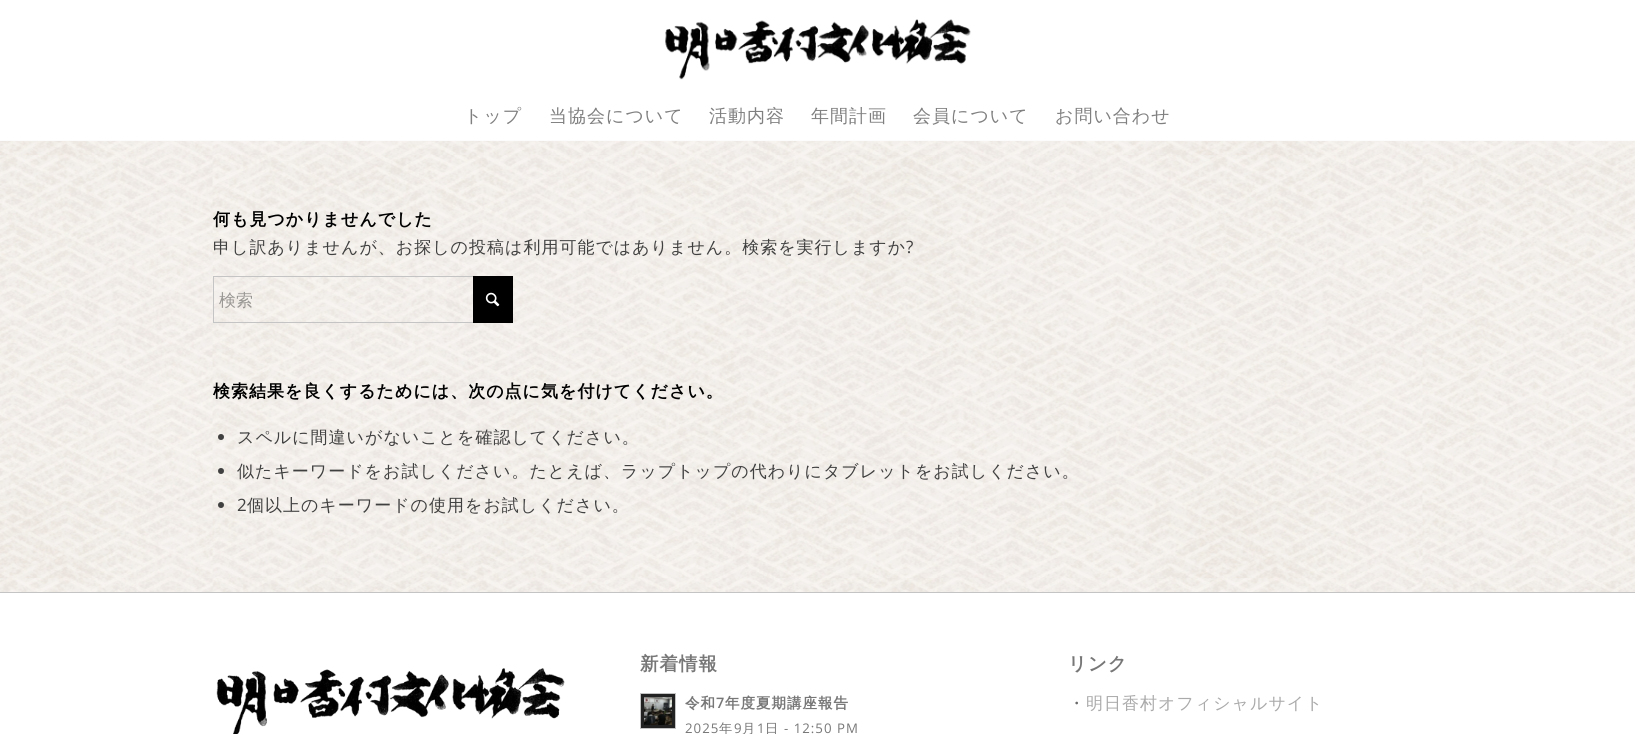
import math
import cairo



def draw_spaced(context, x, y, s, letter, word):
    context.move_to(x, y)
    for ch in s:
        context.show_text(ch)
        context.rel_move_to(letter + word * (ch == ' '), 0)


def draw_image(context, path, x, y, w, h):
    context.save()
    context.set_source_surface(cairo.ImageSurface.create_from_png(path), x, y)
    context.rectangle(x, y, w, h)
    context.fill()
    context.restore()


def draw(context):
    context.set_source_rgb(1, 1, 1)
    context.paint()
    draw_image(context, "images/1.png", 665, 19, 306, 61)
    context.set_source_rgb(196 / 255, 196 / 255, 196 / 255)
    context.rectangle(0, 140, 1635, 1)
    context.fill()
    context.set_source_rgba(1, 1, 1, 0.95)
    context.rectangle(0, 140, 1635, 1)
    context.fill()
    draw_image(context, "images/2.png", 0, 141, 1635, 451)
    context.rectangle(213.5, 276.5, 299, 46)
    context.set_source_rgb(196 / 255, 196 / 255, 196 / 255)
    context.set_line_width(1)
    context.stroke()
    context.set_source_rgb(0, 0, 0)
    context.rectangle(473, 276, 40, 47)
    context.fill()
    draw_image(context, "images/3.png", 485, 292, 15, 15)
    context.set_source_rgb(64 / 255, 64 / 255, 64 / 255)
    context.arc(221, 437, 3, 0, 2 * math.pi)
    context.fill()
    context.arc(221, 471, 3, 0, 2 * math.pi)
    context.fill()
    context.arc(221, 505, 3, 0, 2 * math.pi)
    context.fill()
    context.set_source_rgb(196 / 255, 196 / 255, 196 / 255)
    context.rectangle(0, 592, 1635, 1)
    context.fill()
    draw_image(context, "images/4.png", 216, 668, 349, 66)
    context.set_source_rgb(34 / 255, 34 / 255, 34 / 255)
    context.rectangle(640.5, 693.5, 35, 35)
    context.fill_preserve()
    context.set_source_rgb(196 / 255, 196 / 255, 196 / 255)
    context.stroke()
    draw_image(context, "images/5.png", 644, 697, 28, 28)
    context.select_font_face("WenQuanYi Zen Hei Medium")
    context.set_font_size(18)
    context.set_source_rgb(128 / 255, 128 / 255, 128 / 255)
    draw_spaced(context, 464, 122, "トップ", 1, 0)
    draw_spaced(context, 549, 122, "当協会について", 1, 0)
    draw_spaced(context, 709, 122, "活動内容", 1, 0)
    draw_spaced(context, 811, 122, "年間計画", 1, 0)
    draw_spaced(context, 913, 122, "会員について", 1, 0)
    draw_spaced(context, 1055, 122, "お問い合わせ", 1, 0)
    context.select_font_face("WenQuanYi Zen Hei", cairo.FontSlant.NORMAL, cairo.FontWeight.BOLD)
    context.set_font_size(17)
    context.set_source_rgb(0, 0, 0)
    draw_spaced(context, 213, 225, "何も見つかりませんでした", 1, 0)
    context.select_font_face("WenQuanYi Zen Hei Medium")
    context.set_source_rgb(64 / 255, 64 / 255, 64 / 255)
    draw_spaced(context, 213, 253, "申し訳ありませんが、お探しの投稿は利用可能ではありません。検索を実行しますか", 1, 0)
    context.select_font_face("Open Sans")
    draw_spaced(context, 906, 253, "?", 1, 0)
    context.select_font_face("WenQuanYi Zen Hei Medium")
    context.set_source_rgb(153 / 255, 151 / 255, 148 / 255)
    context.move_to(219, 306)
    context.show_text("検索")
    context.select_font_face("WenQuanYi Zen Hei", cairo.FontSlant.NORMAL, cairo.FontWeight.BOLD)
    context.set_source_rgb(0, 0, 0)
    draw_spaced(context, 213, 397, "検索結果を良くするためには、次の点に気を付けてください。", 1, 0)
    context.select_font_face("WenQuanYi Zen Hei Medium")
    context.set_source_rgb(64 / 255, 64 / 255, 64 / 255)
    draw_spaced(context, 237, 443, "スペルに間違いがないことを確認してください。", 1, 0)
    draw_spaced(context, 237, 477, "似たキーワードをお試しください。たとえば、ラップトップの代わりにタブレットをお試しください。", 1, 0)
    context.select_font_face("Open Sans")
    draw_spaced(context, 237, 511, "2", 1, 0)
    context.select_font_face("WenQuanYi Zen Hei Medium")
    draw_spaced(context, 247, 511, "個以上のキーワードの使用をお試しください。", 1, 0)
    context.select_font_face("WenQuanYi Zen Hei", cairo.FontSlant.NORMAL, cairo.FontWeight.BOLD)
    context.set_font_size(18.5)
    context.set_source_rgb(119 / 255, 119 / 255, 119 / 255)
    draw_spaced(context, 640, 670, "新着情報", 1, 0)
    context.set_font_size(14.5)
    draw_spaced(context, 685, 708, "令和", 1, 0)
    context.select_font_face("Open Sans SemiBold")
    draw_spaced(context, 716, 708, "7", 1, 0)
    context.select_font_face("WenQuanYi Zen Hei", cairo.FontSlant.NORMAL, cairo.FontWeight.BOLD)
    draw_spaced(context, 725, 708, "年度夏期講座報告", 1, 0)
    context.select_font_face("Open Sans")
    context.set_font_size(13.25)
    draw_spaced(context, 685, 733, "2025", 1, 0)
    context.select_font_face("WenQuanYi Zen Hei Medium")
    draw_spaced(context, 719, 733, "年", 1, 0)
    context.select_font_face("Open Sans")
    draw_spaced(context, 734, 733, "9", 1, 0)
    context.select_font_face("WenQuanYi Zen Hei Medium")
    draw_spaced(context, 742, 733, "月", 1, 0)
    context.select_font_face("Open Sans")
    draw_spaced(context, 757, 733, "1", 1, 0)
    context.select_font_face("WenQuanYi Zen Hei Medium")
    draw_spaced(context, 765, 733, "日", 1, 0)
    context.select_font_face("Open Sans")
    draw_spaced(context, 784, 733, "- 12:50 PM", 1, 0)
    context.select_font_face("WenQuanYi Zen Hei", cairo.FontSlant.NORMAL, cairo.FontWeight.BOLD)
    context.set_font_size(18.5)
    draw_spaced(context, 1068, 670, "リンク", 1, 0)
    context.select_font_face("WenQuanYi Zen Hei Medium")
    context.set_font_size(17)
    context.set_source_rgb(107 / 255, 107 / 255, 107 / 255)
    draw_spaced(context, 1068, 709, "・", 1, 0)
    context.set_source_rgb(170 / 255, 170 / 255, 170 / 255)
    draw_spaced(context, 1086, 709, "明日香村オフィシャルサイト", 1, 0)


surface = cairo.ImageSurface(cairo.Format.RGB24, 1635, 734)
context = cairo.Context(surface)
options = cairo.FontOptions()
options.set_hint_metrics(cairo.HintMetrics.OFF)
options.set_hint_style(cairo.HintStyle.NONE)
context.set_font_options(options)
context.set_miter_limit(4)
draw(context)
surface.write_to_png("out.png")
